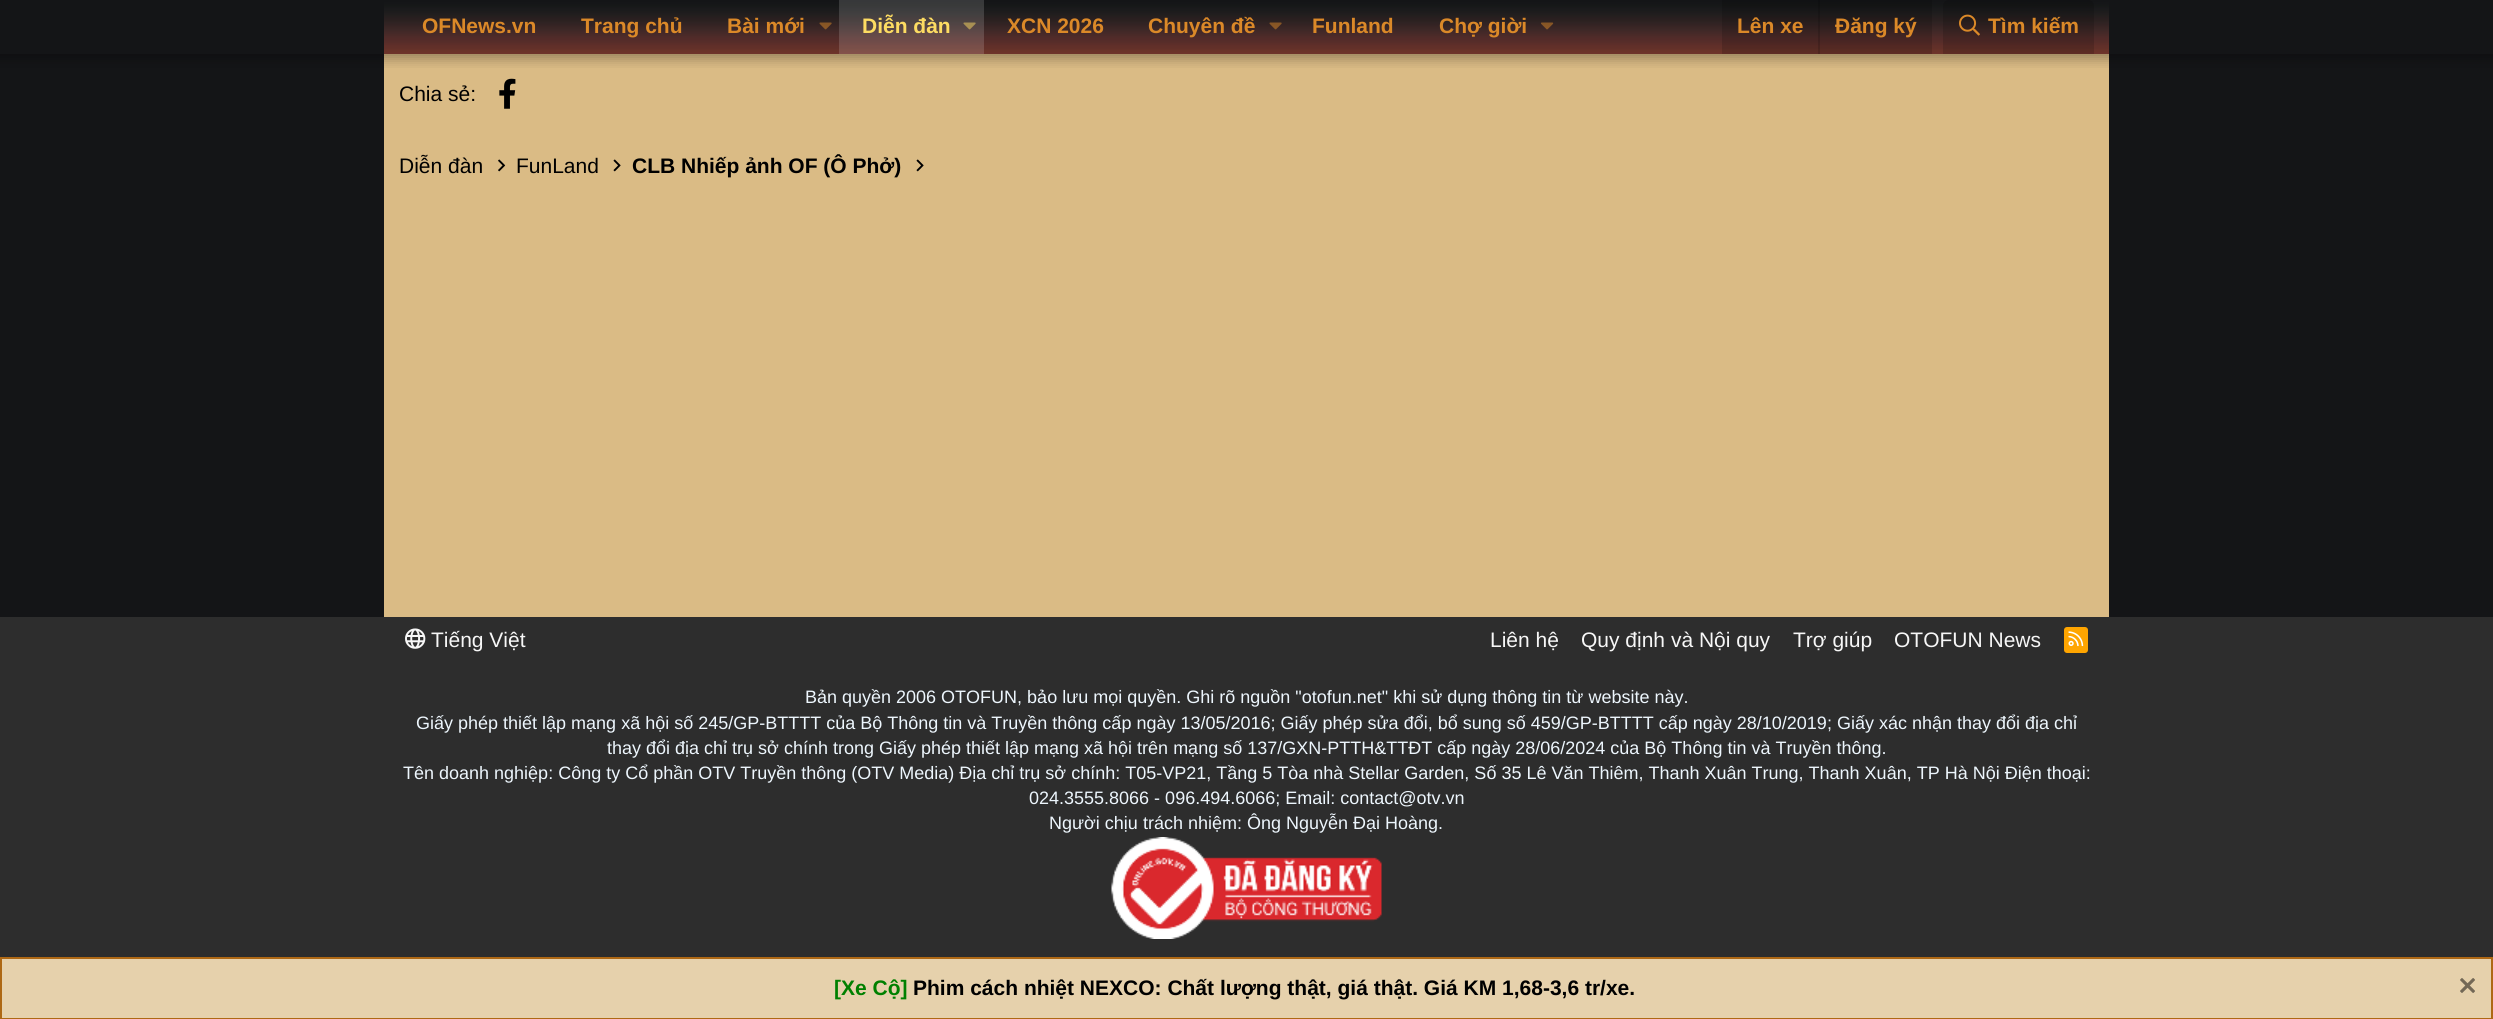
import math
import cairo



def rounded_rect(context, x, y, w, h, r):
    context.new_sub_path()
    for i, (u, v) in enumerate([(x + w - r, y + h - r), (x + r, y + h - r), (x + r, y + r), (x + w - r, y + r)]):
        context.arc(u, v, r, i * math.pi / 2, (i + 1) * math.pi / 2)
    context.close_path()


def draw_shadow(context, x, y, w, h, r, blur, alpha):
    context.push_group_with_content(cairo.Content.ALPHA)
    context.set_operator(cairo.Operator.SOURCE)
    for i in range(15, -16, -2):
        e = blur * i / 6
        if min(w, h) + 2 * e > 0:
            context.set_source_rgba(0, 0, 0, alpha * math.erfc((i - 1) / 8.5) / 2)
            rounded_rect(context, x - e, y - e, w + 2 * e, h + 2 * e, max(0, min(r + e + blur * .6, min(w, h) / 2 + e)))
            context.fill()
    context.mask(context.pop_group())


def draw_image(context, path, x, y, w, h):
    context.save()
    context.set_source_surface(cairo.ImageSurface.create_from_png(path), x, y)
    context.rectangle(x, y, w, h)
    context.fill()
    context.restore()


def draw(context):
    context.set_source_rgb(20 / 255, 21 / 255, 23 / 255)
    context.paint()
    context.set_source_rgb(218 / 255, 187 / 255, 133 / 255)
    context.rectangle(384, 54, 1725, 563)
    context.fill()
    context.save()
    context.rectangle(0, 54, 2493, 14)
    context.clip()
    context.set_source_rgb(0, 0, 0)
    draw_shadow(context, -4, -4, 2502, 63, 0, 6, 0.3)
    context.restore()
    draw_image(context, "images/1.png", 384, 0, 1725, 54)
    draw_image(context, "images/2.png", 819, 22, 13, 8)
    context.set_source_rgba(1, 1, 1, 0.15)
    context.rectangle(839, 0, 145, 54)
    context.fill()
    draw_image(context, "images/3.png", 963, 22, 13, 8)
    draw_image(context, "images/2.png", 1269, 22, 13, 8)
    draw_image(context, "images/4.png", 1541, 22, 13, 8)
    context.set_source_rgba(0, 0, 0, 0.15)
    context.rectangle(1722, 0, 210, 54)
    context.fill()
    context.rectangle(1818, 0, 2, 54)
    context.fill()
    context.new_path()
    context.move_to(1949, 0)
    context.line_to(2088, 0)
    context.curve_to(2091.5, 0, 2094, 2.5, 2094, 6)
    context.line_to(2094, 54)
    context.line_to(1943, 54)
    context.line_to(1943, 6)
    context.curve_to(1943, 2.5, 1945.5, 0, 1949, 0)
    context.close_path()
    context.fill()
    draw_image(context, "images/5.png", 1959, 14, 21, 22)
    draw_image(context, "images/6.png", 499, 78, 17, 31)
    draw_image(context, "images/7.png", 498, 159, 8, 13)
    draw_image(context, "images/8.png", 613, 159, 8, 13)
    draw_image(context, "images/8.png", 916, 159, 8, 13)
    context.set_source_rgb(45 / 255, 45 / 255, 45 / 255)
    context.rectangle(0, 617, 2493, 340)
    context.fill()
    draw_image(context, "images/9.png", 405, 628, 21, 21)
    context.set_source_rgb(1, 165 / 255, 0)
    rounded_rect(context, 2064, 627, 24, 26, 3)
    context.fill()
    draw_image(context, "images/10.png", 2068, 631, 16, 16)
    draw_image(context, "images/11.png", 1111, 837, 271, 102)
    context.set_source_rgb(230 / 255, 209 / 255, 172 / 255)
    context.rectangle(1, 958, 2491, 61)
    context.fill_preserve()
    context.set_source_rgb(174 / 255, 104 / 255, 20 / 255)
    context.stroke()
    draw_image(context, "images/12.png", 2460, 978, 15, 15)
    context.select_font_face("Liberation Sans", cairo.FontSlant.NORMAL, cairo.FontWeight.BOLD)
    context.set_font_size(21)
    context.set_source_rgb(219 / 255, 137 / 255, 40 / 255)
    context.move_to(422, 33)
    context.show_text("OFNews.vn")
    context.move_to(581, 33)
    context.show_text("Trang chủ")
    context.move_to(727, 33)
    context.show_text("Bài mới")
    context.set_source_rgb(253 / 255, 220 / 255, 98 / 255)
    context.move_to(862, 33)
    context.show_text("Diễn đàn")
    context.set_source_rgb(219 / 255, 137 / 255, 40 / 255)
    context.move_to(1007, 33)
    context.show_text("XCN 2026")
    context.move_to(1148, 33)
    context.show_text("Chuyên đề")
    context.move_to(1312, 33)
    context.show_text("Funland")
    context.move_to(1439, 33)
    context.show_text("Chợ giời")
    context.move_to(1737, 33)
    context.show_text("Lên xe")
    context.move_to(1835, 33)
    context.show_text("Đăng ký")
    context.move_to(1988, 33)
    context.show_text("Tìm kiếm")
    context.select_font_face("Liberation Sans")
    context.set_source_rgb(0, 0, 0)
    context.move_to(399, 101)
    context.show_text("Chia sẻ:")
    context.move_to(399, 173)
    context.show_text("Diễn đàn")
    context.move_to(516, 173)
    context.show_text("FunLand")
    context.select_font_face("Liberation Sans", cairo.FontSlant.NORMAL, cairo.FontWeight.BOLD)
    context.move_to(632, 173)
    context.show_text("CLB Nhiếp ảnh OF (Ô Phở)")
    context.select_font_face("Liberation Sans")
    context.set_source_rgb(247 / 255, 247 / 255, 247 / 255)
    context.move_to(431, 647)
    context.show_text("Tiếng Việt")
    context.move_to(1490, 647)
    context.show_text("Liên hệ")
    context.move_to(1581, 647)
    context.show_text("Quy định và Nội quy")
    context.move_to(1793, 647)
    context.show_text("Trợ giúp")
    context.move_to(1894, 647)
    context.show_text("OTOFUN News")
    context.set_font_size(18)
    context.set_source_rgb(237 / 255, 246 / 255, 253 / 255)
    context.move_to(805, 703)
    context.show_text("Bản quyền 2006 OTOFUN, bảo lưu mọi quyền. Ghi rõ nguồn \"otofun.net\" khi sử dụng thông tin từ website này.")
    context.move_to(416, 729)
    context.show_text("Giấy phép thiết lập mạng xã hội số 245/GP-BTTTT của Bộ Thông tin và Truyền thông cấp ngày 13/05/2016; Giấy phép sửa đổi, bổ sung số 459/GP-BTTTT cấp ngày 28/10/2019; Giấy xác nhận thay đổi địa chỉ")
    context.move_to(607, 754)
    context.show_text("thay đổi địa chỉ trụ sở chính trong Giấy phép thiết lập mạng xã hội trên mạng số 137/GXN-PTTH&TTĐT cấp ngày 28/06/2024 của Bộ Thông tin và Truyền thông.")
    context.move_to(403, 779)
    context.show_text("Tên doanh nghiệp: Công ty Cổ phần OTV Truyền thông (OTV Media) Địa chỉ trụ sở chính: T05-VP21, Tầng 5 Tòa nhà Stellar Garden, Số 35 Lê Văn Thiêm, Thanh Xuân Trung, Thanh Xuân, TP Hà Nội Điện thoại:")
    context.move_to(1029, 804)
    context.show_text("024.3555.8066 - 096.494.6066; Email: contact@otv.vn")
    context.move_to(1049, 829)
    context.show_text("Người chịu trách nhiệm: Ông Nguyễn Đại Hoàng.")
    context.select_font_face("Liberation Sans", cairo.FontSlant.NORMAL, cairo.FontWeight.BOLD)
    context.set_font_size(21)
    context.set_source_rgb(0, 128 / 255, 0)
    context.move_to(834, 995)
    context.show_text("[Xe Cộ]")
    context.set_source_rgb(0, 0, 0)
    context.move_to(913, 995)
    context.show_text("Phim cách nhiệt NEXCO: Chất lượng thật, giá thật. Giá KM 1,68-3,6 tr/xe.")


surface = cairo.ImageSurface(cairo.Format.RGB24, 2493, 1019)
context = cairo.Context(surface)
options = cairo.FontOptions()
options.set_hint_metrics(cairo.HintMetrics.OFF)
options.set_hint_style(cairo.HintStyle.NONE)
context.set_font_options(options)
context.set_miter_limit(4)
draw(context)
surface.write_to_png("out.png")
